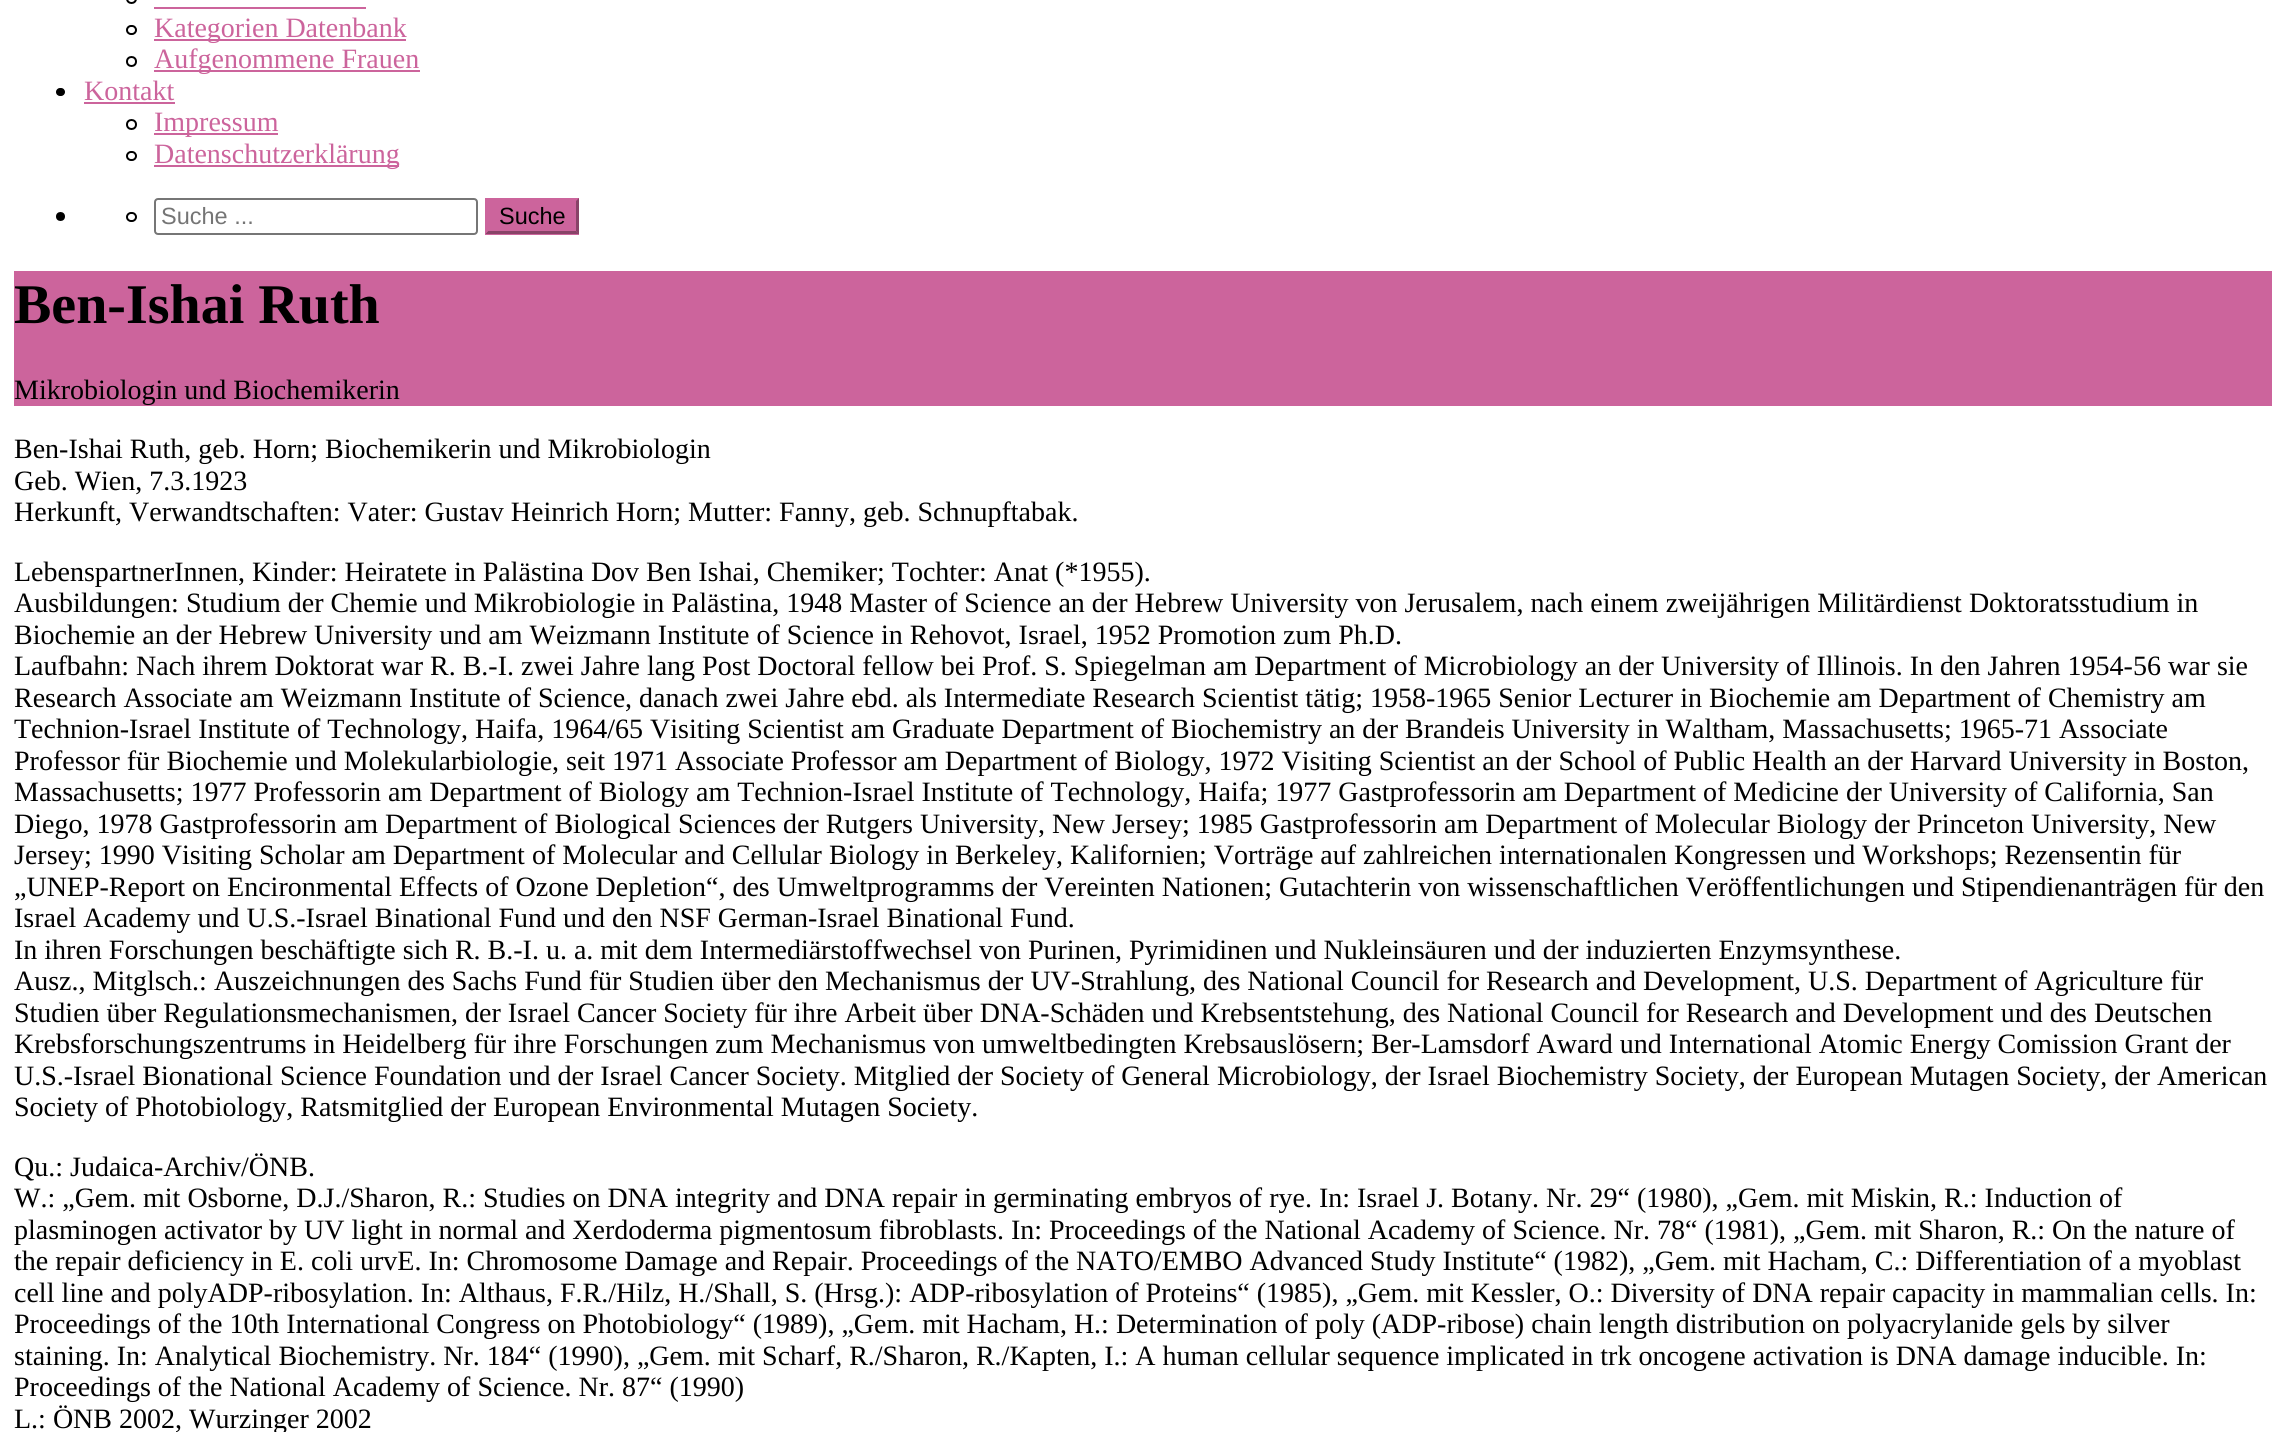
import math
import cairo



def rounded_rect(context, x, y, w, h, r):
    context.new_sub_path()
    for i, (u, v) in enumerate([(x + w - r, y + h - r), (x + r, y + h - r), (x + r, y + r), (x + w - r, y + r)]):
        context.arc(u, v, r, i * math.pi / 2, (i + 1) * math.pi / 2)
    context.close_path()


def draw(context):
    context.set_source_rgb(1, 1, 1)
    context.paint()
    context.arc(131.5, -1.5, 4.5, 0, 2 * math.pi)
    context.set_source_rgb(0, 0, 0)
    context.stroke()
    context.set_source_rgb(204 / 255, 100 / 255, 156 / 255)
    context.rectangle(154, 7, 212, 2)
    context.fill()
    rounded_rect(context, 127, 26, 9, 8, 4)
    context.set_source_rgb(0, 0, 0)
    context.stroke()
    context.set_source_rgb(204 / 255, 100 / 255, 156 / 255)
    context.rectangle(154, 39, 252, 2)
    context.fill()
    context.arc(131.5, 61.5, 4.5, 0, 2 * math.pi)
    context.set_source_rgb(0, 0, 0)
    context.stroke()
    context.set_source_rgb(204 / 255, 100 / 255, 156 / 255)
    context.rectangle(154, 70, 266, 2)
    context.fill()
    context.set_source_rgb(0, 0, 0)
    rounded_rect(context, 56, 88, 9, 8, 4)
    context.fill()
    context.set_source_rgb(204 / 255, 100 / 255, 156 / 255)
    context.rectangle(84, 102, 91, 2)
    context.fill()
    context.arc(131.5, 124.5, 4.5, 0, 2 * math.pi)
    context.set_source_rgb(0, 0, 0)
    context.stroke()
    context.set_source_rgb(204 / 255, 100 / 255, 156 / 255)
    context.rectangle(154, 133, 124, 2)
    context.fill()
    rounded_rect(context, 127, 152, 9, 8, 4)
    context.set_source_rgb(0, 0, 0)
    context.stroke()
    context.set_source_rgb(204 / 255, 100 / 255, 156 / 255)
    context.rectangle(154, 165, 245, 2)
    context.fill()
    context.set_source_rgb(0, 0, 0)
    context.arc(60.5, 216.5, 4.5, 0, 2 * math.pi)
    context.fill()
    rounded_rect(context, 127, 213, 9, 8, 4)
    context.stroke()
    rounded_rect(context, 155, 199, 322, 35, 3)
    context.set_source_rgb(118 / 255, 118 / 255, 118 / 255)
    context.stroke()
    context.set_source_rgb(204 / 255, 100 / 255, 156 / 255)
    context.rectangle(485, 198, 94, 37)
    context.fill()
    context.set_source_rgb(136 / 255, 67 / 255, 104 / 255)
    context.new_path()
    context.move_to(579, 198)
    context.line_to(579, 234.5)
    context.line_to(576, 231)
    context.line_to(576, 201)
    context.close_path()
    context.fill()
    context.new_path()
    context.move_to(579, 234)
    context.line_to(485, 234)
    context.line_to(488, 231)
    context.line_to(576, 231)
    context.close_path()
    context.fill()
    context.set_source_rgb(204 / 255, 100 / 255, 156 / 255)
    context.new_path()
    context.move_to(485, 234.5)
    context.line_to(485, 198)
    context.line_to(488, 201)
    context.line_to(488, 231)
    context.close_path()
    context.fill()
    context.rectangle(14, 271, 2258, 135)
    context.fill()
    context.select_font_face("Liberation Serif")
    context.set_font_size(28)
    context.move_to(154, 37)
    context.show_text("Kategorien Datenbank")
    context.move_to(154, 68)
    context.show_text("Aufgenommene Frauen")
    context.move_to(84, 100)
    context.show_text("Kontakt")
    context.move_to(154, 131)
    context.show_text("Impressum")
    context.move_to(154, 163)
    context.show_text("Datenschutzerklärung")
    context.select_font_face("Liberation Sans")
    context.set_font_size(23.5)
    context.set_source_rgb(117 / 255, 117 / 255, 117 / 255)
    context.move_to(161, 224)
    context.show_text("Suche ...")
    context.set_source_rgb(0, 0, 0)
    context.move_to(499, 224)
    context.show_text("Suche")
    context.select_font_face("Liberation Serif", cairo.FontSlant.NORMAL, cairo.FontWeight.BOLD)
    context.set_font_size(56)
    context.move_to(14, 323)
    context.show_text("Ben-Ishai Ruth")
    context.select_font_face("Liberation Serif")
    context.set_font_size(28)
    context.move_to(14, 399)
    context.show_text("Mikrobiologin und Biochemikerin")
    context.move_to(14, 458)
    context.show_text("Ben-Ishai Ruth, geb. Horn; Biochemikerin und Mikrobiologin")
    context.move_to(14, 490)
    context.show_text("Geb. Wien, 7.3.1923")
    context.move_to(14, 521)
    context.show_text("Herkunft, Verwandtschaften: Vater: Gustav Heinrich Horn; Mutter: Fanny, geb. Schnupftabak.")
    context.move_to(14, 581)
    context.show_text("LebenspartnerInnen, Kinder: Heiratete in Palästina Dov Ben Ishai, Chemiker; Tochter: Anat (*1955).")
    context.move_to(14, 612)
    context.show_text("Ausbildungen: Studium der Chemie und Mikrobiologie in Palästina, 1948 Master of Science an der Hebrew University von Jerusalem, nach einem zweijährigen Militärdienst Doktoratsstudium in")
    context.move_to(14, 644)
    context.show_text("Biochemie an der Hebrew University und am Weizmann Institute of Science in Rehovot, Israel, 1952 Promotion zum Ph.D.")
    context.move_to(14, 675)
    context.show_text("Laufbahn: Nach ihrem Doktorat war R. B.-I. zwei Jahre lang Post Doctoral fellow bei Prof. S. Spiegelman am Department of Microbiology an der University of Illinois. In den Jahren 1954-56 war sie")
    context.move_to(14, 707)
    context.show_text("Research Associate am Weizmann Institute of Science, danach zwei Jahre ebd. als Intermediate Research Scientist tätig; 1958-1965 Senior Lecturer in Biochemie am Department of Chemistry am")
    context.move_to(14, 738)
    context.show_text("Technion-Israel Institute of Technology, Haifa, 1964/65 Visiting Scientist am Graduate Department of Biochemistry an der Brandeis University in Waltham, Massachusetts; 1965-71 Associate")
    context.move_to(14, 770)
    context.show_text("Professor für Biochemie und Molekularbiologie, seit 1971 Associate Professor am Department of Biology, 1972 Visiting Scientist an der School of Public Health an der Harvard University in Boston,")
    context.move_to(14, 801)
    context.show_text("Massachusetts; 1977 Professorin am Department of Biology am Technion-Israel Institute of Technology, Haifa; 1977 Gastprofessorin am Department of Medicine der University of California, San")
    context.move_to(14, 833)
    context.show_text("Diego, 1978 Gastprofessorin am Department of Biological Sciences der Rutgers University, New Jersey; 1985 Gastprofessorin am Department of Molecular Biology der Princeton University, New")
    context.move_to(14, 864)
    context.show_text("Jersey; 1990 Visiting Scholar am Department of Molecular and Cellular Biology in Berkeley, Kalifornien; Vorträge auf zahlreichen internationalen Kongressen und Workshops; Rezensentin für")
    context.move_to(14, 896)
    context.show_text("„UNEP-Report on Encironmental Effects of Ozone Depletion“, des Umweltprogramms der Vereinten Nationen; Gutachterin von wissenschaftlichen Veröffentlichungen und Stipendienanträgen für den")
    context.move_to(14, 927)
    context.show_text("Israel Academy und U.S.-Israel Binational Fund und den NSF German-Israel Binational Fund.")
    context.move_to(14, 959)
    context.show_text("In ihren Forschungen beschäftigte sich R. B.-I. u. a. mit dem Intermediärstoffwechsel von Purinen, Pyrimidinen und Nukleinsäuren und der induzierten Enzymsynthese.")
    context.move_to(14, 990)
    context.show_text("Ausz., Mitglsch.: Auszeichnungen des Sachs Fund für Studien über den Mechanismus der UV-Strahlung, des National Council for Research and Development, U.S. Department of Agriculture für")
    context.move_to(14, 1022)
    context.show_text("Studien über Regulationsmechanismen, der Israel Cancer Society für ihre Arbeit über DNA-Schäden und Krebsentstehung, des National Council for Research and Development und des Deutschen")
    context.move_to(14, 1053)
    context.show_text("Krebsforschungszentrums in Heidelberg für ihre Forschungen zum Mechanismus von umweltbedingten Krebsauslösern; Ber-Lamsdorf Award und International Atomic Energy Comission Grant der")
    context.move_to(14, 1085)
    context.show_text("U.S.-Israel Bionational Science Foundation und der Israel Cancer Society. Mitglied der Society of General Microbiology, der Israel Biochemistry Society, der European Mutagen Society, der American")
    context.move_to(14, 1116)
    context.show_text("Society of Photobiology, Ratsmitglied der European Environmental Mutagen Society.")
    context.move_to(14, 1176)
    context.show_text("Qu.: Judaica-Archiv/ÖNB.")
    context.move_to(14, 1207)
    context.show_text("W.: „Gem. mit Osborne, D.J./Sharon, R.: Studies on DNA integrity and DNA repair in germinating embryos of rye. In: Israel J. Botany. Nr. 29“ (1980), „Gem. mit Miskin, R.: Induction of")
    context.move_to(14, 1239)
    context.show_text("plasminogen activator by UV light in normal and Xerdoderma pigmentosum fibroblasts. In: Proceedings of the National Academy of Science. Nr. 78“ (1981), „Gem. mit Sharon, R.: On the nature of")
    context.move_to(14, 1270)
    context.show_text("the repair deficiency in E. coli urvE. In: Chromosome Damage and Repair. Proceedings of the NATO/EMBO Advanced Study Institute“ (1982), „Gem. mit Hacham, C.: Differentiation of a myoblast")
    context.move_to(14, 1302)
    context.show_text("cell line and polyADP-ribosylation. In: Althaus, F.R./Hilz, H./Shall, S. (Hrsg.): ADP-ribosylation of Proteins“ (1985), „Gem. mit Kessler, O.: Diversity of DNA repair capacity in mammalian cells. In:")
    context.move_to(14, 1333)
    context.show_text("Proceedings of the 10th International Congress on Photobiology“ (1989), „Gem. mit Hacham, H.: Determination of poly (ADP-ribose) chain length distribution on polyacrylanide gels by silver")
    context.move_to(14, 1365)
    context.show_text("staining. In: Analytical Biochemistry. Nr. 184“ (1990), „Gem. mit Scharf, R./Sharon, R./Kapten, I.: A human cellular sequence implicated in trk oncogene activation is DNA damage inducible. In:")
    context.move_to(14, 1396)
    context.show_text("Proceedings of the National Academy of Science. Nr. 87“ (1990)")
    context.move_to(14, 1428)
    context.show_text("L.: ÖNB 2002, Wurzinger 2002")


surface = cairo.ImageSurface(cairo.Format.RGB24, 2284, 1432)
context = cairo.Context(surface)
options = cairo.FontOptions()
options.set_hint_metrics(cairo.HintMetrics.OFF)
options.set_hint_style(cairo.HintStyle.NONE)
context.set_font_options(options)
context.set_miter_limit(4)
draw(context)
surface.write_to_png("out.png")
